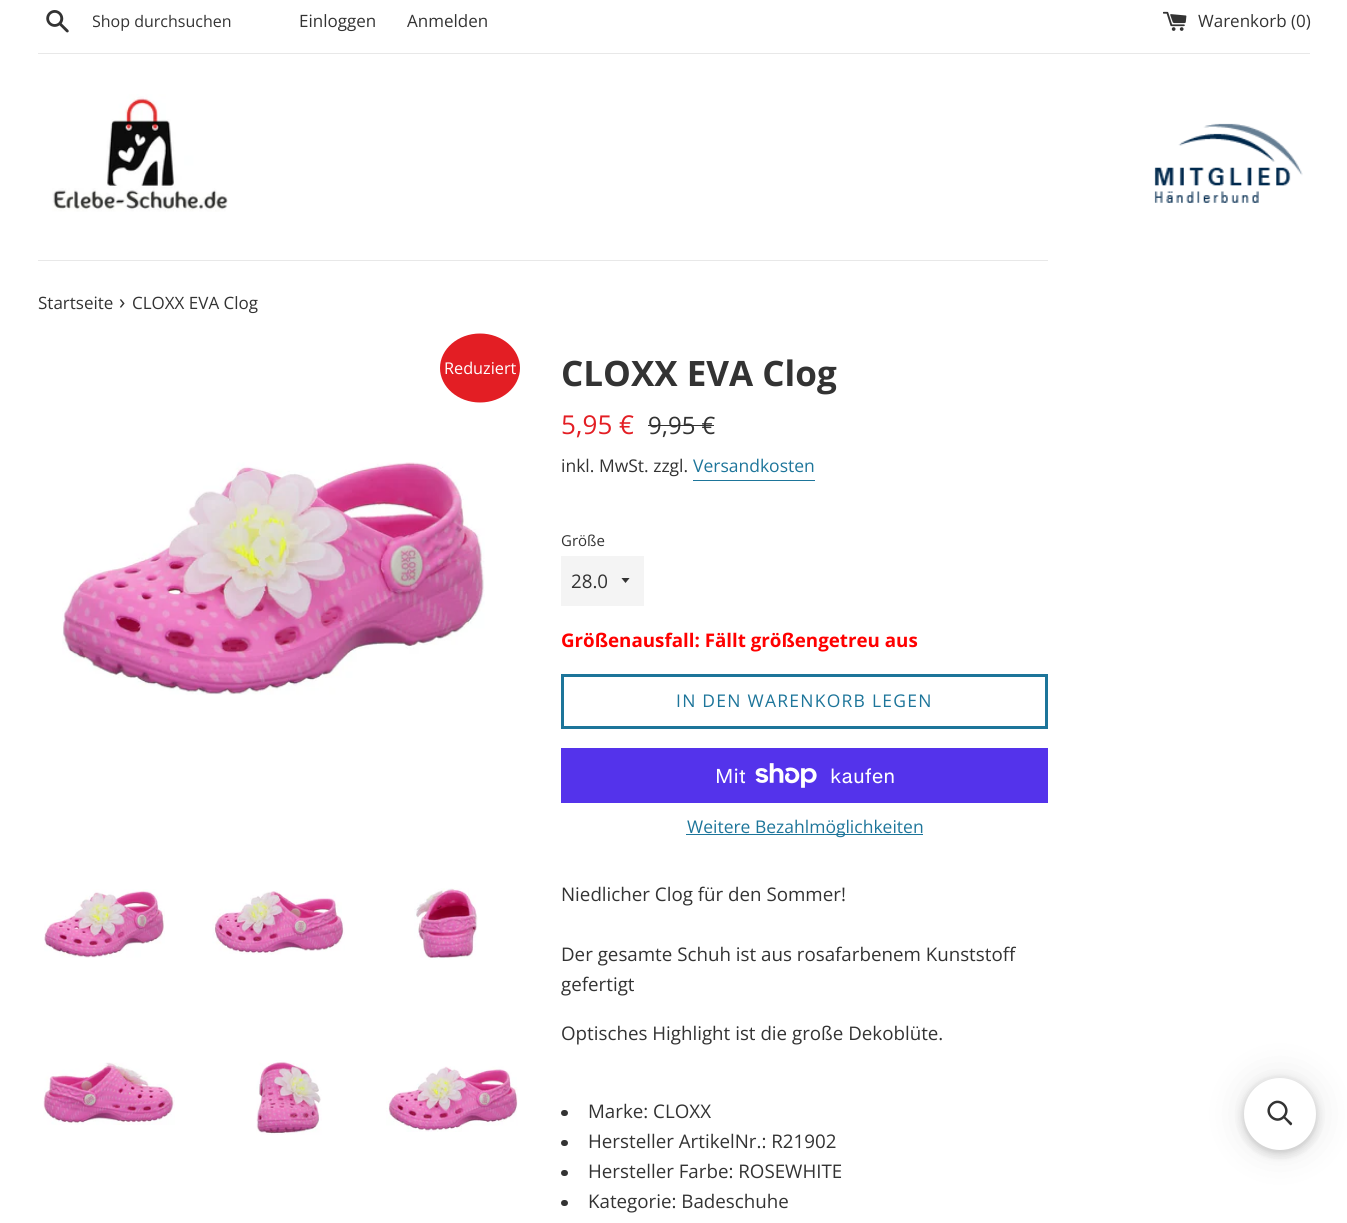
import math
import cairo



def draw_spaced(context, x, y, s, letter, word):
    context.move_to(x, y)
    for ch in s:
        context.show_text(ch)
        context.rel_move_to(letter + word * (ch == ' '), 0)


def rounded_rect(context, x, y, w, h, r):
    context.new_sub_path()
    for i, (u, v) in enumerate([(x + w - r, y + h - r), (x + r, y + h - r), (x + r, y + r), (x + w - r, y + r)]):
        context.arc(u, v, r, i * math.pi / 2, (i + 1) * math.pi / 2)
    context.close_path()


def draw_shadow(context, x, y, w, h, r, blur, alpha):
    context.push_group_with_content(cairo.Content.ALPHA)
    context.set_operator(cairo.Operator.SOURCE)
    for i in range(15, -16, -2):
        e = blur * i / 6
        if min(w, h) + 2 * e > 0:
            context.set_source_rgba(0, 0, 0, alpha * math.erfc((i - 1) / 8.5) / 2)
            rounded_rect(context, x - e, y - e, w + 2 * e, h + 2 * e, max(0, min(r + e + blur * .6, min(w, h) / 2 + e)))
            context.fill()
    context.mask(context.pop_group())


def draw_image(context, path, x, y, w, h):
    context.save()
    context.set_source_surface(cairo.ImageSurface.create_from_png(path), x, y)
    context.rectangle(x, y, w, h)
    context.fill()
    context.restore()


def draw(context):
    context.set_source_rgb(1, 1, 1)
    context.paint()
    draw_image(context, "images/1.png", 46, 10, 23, 23)
    draw_image(context, "images/2.png", 1163, 11, 24, 20)
    context.set_source_rgb(232 / 255, 232 / 255, 232 / 255)
    context.rectangle(38, 53, 1272, 1)
    context.fill()
    draw_image(context, "images/3.png", 52, 94, 176, 118)
    draw_image(context, "images/4.png", 1154, 123, 149, 80)
    context.rectangle(38, 260, 1010, 1)
    context.fill()
    context.set_source_rgb(227 / 255, 30 / 255, 36 / 255)
    context.new_path()
    context.move_to(480, 333.5)
    context.curve_to(502, 333.5, 520, 349, 520, 368)
    context.curve_to(520, 387, 502, 402.5, 480, 402.5)
    context.curve_to(458, 402.5, 440, 387, 440, 368)
    context.curve_to(440, 349, 458, 333.5, 480, 333.5)
    context.close_path()
    context.fill()
    draw_image(context, "images/5.png", 62, 462, 423, 233)
    draw_image(context, "images/6.png", 44, 889, 121, 69)
    draw_image(context, "images/7.png", 212, 890, 133, 65)
    draw_image(context, "images/8.png", 414, 888, 64, 72)
    draw_image(context, "images/9.png", 43, 1062, 132, 63)
    draw_image(context, "images/10.png", 256, 1060, 66, 75)
    draw_image(context, "images/11.png", 386, 1066, 132, 66)
    context.set_source_rgb(51 / 255, 51 / 255, 51 / 255)
    context.rectangle(648, 425, 66, 1)
    context.fill()
    context.set_source_rgb(29 / 255, 117 / 255, 154 / 255)
    context.rectangle(693, 480, 122, 1)
    context.fill()
    context.set_source_rgb(244 / 255, 244 / 255, 244 / 255)
    context.rectangle(561, 556, 83, 50)
    context.fill()
    context.save()
    context.rectangle(621, 578, 10, 6)
    context.clip()
    context.set_source_rgb(51 / 255, 51 / 255, 51 / 255)
    context.new_path()
    context.move_to(621, 577.5)
    context.line_to(625.5, 583)
    context.line_to(630, 577.5)
    context.close_path()
    context.fill()
    context.restore()
    context.rectangle(562.5, 675.5, 484, 52)
    context.set_source_rgb(29 / 255, 117 / 255, 154 / 255)
    context.set_line_width(3)
    context.stroke()
    context.set_source_rgb(84 / 255, 51 / 255, 235 / 255)
    context.rectangle(561, 748, 487, 55)
    context.fill()
    draw_image(context, "images/12.png", 755, 763, 62, 25)
    context.set_source_rgb(29 / 255, 117 / 255, 154 / 255)
    context.rectangle(686, 834, 237, 1)
    context.fill()
    context.set_source_rgb(51 / 255, 51 / 255, 51 / 255)
    rounded_rect(context, 561, 1110, 7, 6, 3)
    context.fill()
    rounded_rect(context, 561, 1140, 7, 6, 3)
    context.fill()
    rounded_rect(context, 561, 1170, 7, 6, 3)
    context.fill()
    rounded_rect(context, 561, 1200, 7, 6, 3)
    context.fill()
    context.set_source_rgb(0, 0, 0)
    draw_shadow(context, 1244, 1083, 72, 72, 36, 5, 0.05)
    draw_shadow(context, 1244, 1080, 72, 73, 36, 5, 0.15)
    draw_shadow(context, 1244, 1078, 72, 72, 36, 19, 0.1)
    context.set_source_rgb(1, 1, 1)
    context.arc(1280, 1114, 36, 0, 2 * math.pi)
    context.fill()
    context.new_path()
    context.move_to(1271.5, 1104.5)
    context.curve_to(1279.5, 1096.5, 1292, 1108.5, 1283.5, 1117)
    context.curve_to(1275.5, 1125, 1263, 1112.5, 1271.5, 1104.5)
    context.close_path()
    context.set_source_rgb(51 / 255, 51 / 255, 51 / 255)
    context.set_line_width(2.5)
    context.stroke()
    context.new_path()
    context.move_to(1283, 1117.5)
    context.line_to(1284.5, 1116)
    context.line_to(1292, 1123)
    context.curve_to(1292.5, 1124.5, 1291, 1126, 1290, 1125)
    context.close_path()
    context.fill()
    context.save()
    context.rectangle(93, 10, 191, 23)
    context.clip()
    context.select_font_face("Open Sans")
    context.set_font_size(16)
    context.move_to(92, 27)
    context.show_text("Shop durchsuchen")
    context.restore()
    context.select_font_face("Open Sans")
    context.set_font_size(17)
    context.move_to(299, 27)
    context.show_text("Einloggen")
    context.move_to(407, 27)
    context.show_text("Anmelden")
    context.move_to(1198, 27)
    context.show_text("Warenkorb (0)")
    context.move_to(38, 309)
    context.show_text("Startseite")
    context.set_font_size(21)
    context.move_to(119, 309)
    context.show_text("›")
    context.set_font_size(17)
    context.move_to(132, 309)
    context.show_text("CLOXX EVA Clog")
    context.set_font_size(16.25)
    context.set_source_rgb(1, 1, 1)
    context.move_to(444, 374)
    context.show_text("Reduziert")
    context.select_font_face("Open Sans", cairo.FontSlant.NORMAL, cairo.FontWeight.BOLD)
    context.set_font_size(35)
    context.set_source_rgb(51 / 255, 51 / 255, 51 / 255)
    context.move_to(561, 386)
    context.show_text("CLOXX EVA Clog")
    context.select_font_face("Open Sans")
    context.set_font_size(26)
    context.set_source_rgb(227 / 255, 30 / 255, 36 / 255)
    context.move_to(561, 434)
    context.show_text("5,95 €")
    context.set_font_size(24)
    context.set_source_rgb(51 / 255, 51 / 255, 51 / 255)
    context.move_to(648, 434)
    context.show_text("9,95 €")
    context.set_font_size(17.5)
    context.move_to(561, 472)
    context.show_text("inkl. MwSt. zzgl.")
    context.set_source_rgb(29 / 255, 117 / 255, 154 / 255)
    context.move_to(693, 472)
    context.show_text("Versandkosten")
    context.set_font_size(15)
    context.set_source_rgb(51 / 255, 51 / 255, 51 / 255)
    context.move_to(561, 546)
    context.show_text("Größe")
    context.set_font_size(18.75)
    context.move_to(571, 588)
    context.show_text("28.0")
    context.select_font_face("Open Sans", cairo.FontSlant.NORMAL, cairo.FontWeight.BOLD)
    context.set_source_rgb(1, 0, 0)
    context.move_to(561, 647)
    context.show_text("Größenausfall: Fällt größengetreu aus")
    context.select_font_face("Open Sans")
    context.set_font_size(17.5)
    context.set_source_rgb(29 / 255, 117 / 255, 154 / 255)
    draw_spaced(context, 676, 707, "IN DEN WARENKORB LEGEN", 1.25, 0)
    context.select_font_face("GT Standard")
    context.set_font_size(20)
    context.set_source_rgb(1, 1, 1)
    context.move_to(715, 783)
    context.show_text("Mit")
    context.move_to(830, 783)
    context.show_text("kaufen")
    context.select_font_face("Open Sans")
    context.set_font_size(17.5)
    context.set_source_rgb(29 / 255, 117 / 255, 154 / 255)
    context.move_to(687, 833)
    context.show_text("Weitere Bezahlmöglichkeiten")
    context.set_font_size(18.75)
    context.set_source_rgb(51 / 255, 51 / 255, 51 / 255)
    context.move_to(561, 901)
    context.show_text("Niedlicher Clog für den Sommer!")
    context.move_to(561, 961)
    context.show_text("Der gesamte Schuh ist aus rosafarbenem Kunststoff")
    context.move_to(561, 991)
    context.show_text("gefertigt")
    context.move_to(561, 1040)
    context.show_text("Optisches Highlight ist die große Dekoblüte.")
    context.move_to(588, 1118)
    context.show_text("Marke: CLOXX")
    context.move_to(588, 1148)
    context.show_text("Hersteller ArtikelNr.: R21902")
    context.move_to(588, 1178)
    context.show_text("Hersteller Farbe: ROSEWHITE")
    context.move_to(588, 1208)
    context.show_text("Kategorie: Badeschuhe")


surface = cairo.ImageSurface(cairo.Format.RGB24, 1347, 1223)
context = cairo.Context(surface)
options = cairo.FontOptions()
options.set_hint_metrics(cairo.HintMetrics.OFF)
options.set_hint_style(cairo.HintStyle.NONE)
context.set_font_options(options)
context.set_miter_limit(4)
draw(context)
surface.write_to_png("out.png")
